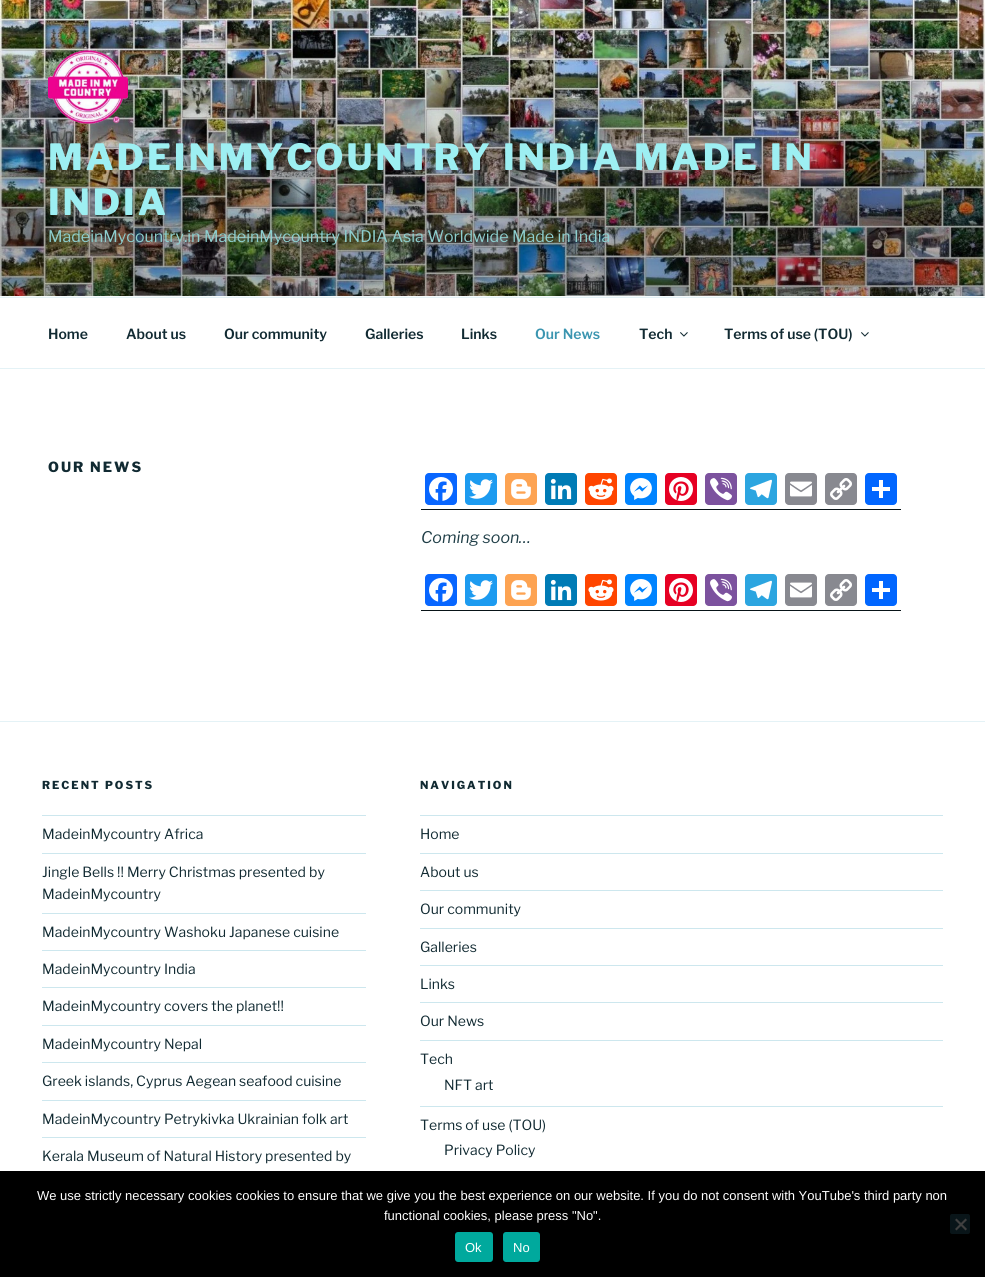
import math
import cairo



def draw_spaced(context, x, y, s, letter, word):
    context.move_to(x, y)
    for ch in s:
        context.show_text(ch)
        context.rel_move_to(letter + word * (ch == ' '), 0)


def rounded_rect(context, x, y, w, h, r):
    context.new_sub_path()
    for i, (u, v) in enumerate([(x + w - r, y + h - r), (x + r, y + h - r), (x + r, y + r), (x + w - r, y + r)]):
        context.arc(u, v, r, i * math.pi / 2, (i + 1) * math.pi / 2)
    context.close_path()


def draw_image(context, path, x, y, w, h):
    context.save()
    context.set_source_surface(cairo.ImageSurface.create_from_png(path), x, y)
    context.rectangle(x, y, w, h)
    context.fill()
    context.restore()


def draw(context):
    context.set_source_rgb(1, 1, 1)
    context.paint()
    context.set_source_rgb(247 / 255, 251 / 255, 252 / 255)
    context.rectangle(0, 296, 985, 1)
    context.fill()
    draw_image(context, "images/1.png", 0, 0, 985, 296)
    draw_image(context, "images/2.png", 48, 50, 80, 74)
    context.set_source_rgb(228 / 255, 242 / 255, 246 / 255)
    context.rectangle(0, 297, 985, 1)
    context.fill()
    context.rectangle(0, 368, 985, 1)
    context.fill()
    draw_image(context, "images/3.png", 680, 332, 8, 5)
    draw_image(context, "images/3.png", 861, 332, 8, 5)
    context.set_source_rgb(8 / 255, 19 / 255, 23 / 255)
    context.rectangle(421, 509, 480, 1)
    context.fill()
    context.set_source_rgb(8 / 255, 102 / 255, 1)
    rounded_rect(context, 425, 473, 32, 32, 4)
    context.fill()
    draw_image(context, "images/4.png", 429, 477, 24, 24)
    context.set_source_rgb(29 / 255, 155 / 255, 240 / 255)
    rounded_rect(context, 465, 473, 32, 32, 4)
    context.fill()
    draw_image(context, "images/5.png", 469, 479, 24, 20)
    context.set_source_rgb(253 / 255, 163 / 255, 82 / 255)
    rounded_rect(context, 505, 473, 32, 32, 4)
    context.fill()
    draw_image(context, "images/6.png", 511, 479, 20, 20)
    context.set_source_rgb(0, 123 / 255, 181 / 255)
    rounded_rect(context, 545, 473, 32, 32, 4)
    context.fill()
    draw_image(context, "images/7.png", 550, 478, 22, 22)
    context.set_source_rgb(1, 69 / 255, 0)
    rounded_rect(context, 585, 473, 32, 32, 4)
    context.fill()
    draw_image(context, "images/8.png", 588, 478, 26, 22)
    context.set_source_rgb(0, 132 / 255, 1)
    rounded_rect(context, 625, 473, 32, 32, 4)
    context.fill()
    draw_image(context, "images/9.png", 630, 478, 22, 22)
    context.set_source_rgb(230 / 255, 0, 35 / 255)
    rounded_rect(context, 665, 473, 32, 32, 4)
    context.fill()
    draw_image(context, "images/10.png", 669, 477, 24, 24)
    context.set_source_rgb(124 / 255, 82 / 255, 158 / 255)
    rounded_rect(context, 705, 473, 32, 32, 4)
    context.fill()
    draw_image(context, "images/11.png", 710, 477, 22, 24)
    context.set_source_rgb(44 / 255, 165 / 255, 224 / 255)
    rounded_rect(context, 745, 473, 32, 32, 4)
    context.fill()
    draw_image(context, "images/12.png", 750, 479, 22, 20)
    context.set_source_rgb(136 / 255, 137 / 255, 144 / 255)
    rounded_rect(context, 785, 473, 32, 32, 4)
    context.fill()
    draw_image(context, "images/13.png", 790, 481, 22, 16)
    rounded_rect(context, 825, 473, 32, 32, 4)
    context.fill()
    draw_image(context, "images/14.png", 830, 478, 22, 22)
    context.set_source_rgb(1 / 255, 102 / 255, 1)
    rounded_rect(context, 865, 473, 32, 32, 4)
    context.fill()
    context.set_source_rgb(1, 1, 1)
    context.rectangle(879, 480, 4, 18)
    context.fill()
    context.rectangle(872, 487, 18, 4)
    context.fill()
    context.set_source_rgb(8 / 255, 19 / 255, 23 / 255)
    context.rectangle(421, 610, 480, 1)
    context.fill()
    context.set_source_rgb(8 / 255, 102 / 255, 1)
    rounded_rect(context, 425, 574, 32, 32, 4)
    context.fill()
    draw_image(context, "images/4.png", 429, 578, 24, 24)
    context.set_source_rgb(29 / 255, 155 / 255, 240 / 255)
    rounded_rect(context, 465, 574, 32, 32, 4)
    context.fill()
    draw_image(context, "images/5.png", 469, 580, 24, 20)
    context.set_source_rgb(253 / 255, 163 / 255, 82 / 255)
    rounded_rect(context, 505, 574, 32, 32, 4)
    context.fill()
    draw_image(context, "images/6.png", 511, 580, 20, 20)
    context.set_source_rgb(0, 123 / 255, 181 / 255)
    rounded_rect(context, 545, 574, 32, 32, 4)
    context.fill()
    draw_image(context, "images/7.png", 550, 579, 22, 22)
    context.set_source_rgb(1, 69 / 255, 0)
    rounded_rect(context, 585, 574, 32, 32, 4)
    context.fill()
    draw_image(context, "images/8.png", 588, 579, 26, 22)
    context.set_source_rgb(0, 132 / 255, 1)
    rounded_rect(context, 625, 574, 32, 32, 4)
    context.fill()
    draw_image(context, "images/9.png", 630, 579, 22, 22)
    context.set_source_rgb(230 / 255, 0, 35 / 255)
    rounded_rect(context, 665, 574, 32, 32, 4)
    context.fill()
    draw_image(context, "images/10.png", 669, 578, 24, 24)
    context.set_source_rgb(124 / 255, 82 / 255, 158 / 255)
    rounded_rect(context, 705, 574, 32, 32, 4)
    context.fill()
    draw_image(context, "images/11.png", 710, 578, 22, 24)
    context.set_source_rgb(44 / 255, 165 / 255, 224 / 255)
    rounded_rect(context, 745, 574, 32, 32, 4)
    context.fill()
    draw_image(context, "images/12.png", 750, 580, 22, 20)
    context.set_source_rgb(136 / 255, 137 / 255, 144 / 255)
    rounded_rect(context, 785, 574, 32, 32, 4)
    context.fill()
    draw_image(context, "images/13.png", 790, 582, 22, 16)
    rounded_rect(context, 825, 574, 32, 32, 4)
    context.fill()
    draw_image(context, "images/14.png", 830, 579, 22, 22)
    context.set_source_rgb(1 / 255, 102 / 255, 1)
    rounded_rect(context, 865, 574, 32, 32, 4)
    context.fill()
    context.set_source_rgb(1, 1, 1)
    context.rectangle(879, 581, 4, 18)
    context.fill()
    context.rectangle(872, 588, 18, 4)
    context.fill()
    context.set_source_rgb(228 / 255, 242 / 255, 246 / 255)
    context.rectangle(0, 721, 985, 1)
    context.fill()
    context.set_source_rgb(205 / 255, 231 / 255, 238 / 255)
    context.rectangle(42, 815, 324, 1)
    context.fill()
    context.rectangle(42, 853, 324, 1)
    context.fill()
    context.rectangle(42, 913, 324, 1)
    context.fill()
    context.rectangle(42, 950, 324, 1)
    context.fill()
    context.rectangle(42, 987, 324, 1)
    context.fill()
    context.rectangle(42, 1025, 324, 1)
    context.fill()
    context.rectangle(42, 1062, 324, 1)
    context.fill()
    context.rectangle(42, 1100, 324, 1)
    context.fill()
    context.rectangle(42, 1137, 324, 1)
    context.fill()
    context.rectangle(420, 815, 523, 1)
    context.fill()
    context.rectangle(420, 853, 523, 1)
    context.fill()
    context.rectangle(420, 890, 523, 1)
    context.fill()
    context.rectangle(420, 928, 523, 1)
    context.fill()
    context.rectangle(420, 965, 523, 1)
    context.fill()
    context.rectangle(420, 1002, 523, 1)
    context.fill()
    context.rectangle(420, 1040, 523, 1)
    context.fill()
    context.rectangle(420, 1106, 523, 1)
    context.fill()
    context.set_source_rgb(0, 0, 0)
    context.rectangle(0, 1171, 985, 106)
    context.fill()
    context.set_source_rgb(9 / 255, 21 / 255, 25 / 255)
    rounded_rect(context, 950, 1214, 20, 20, 2)
    context.fill()
    context.set_source_rgb(64 / 255, 64 / 255, 64 / 255)
    context.new_path()
    context.move_to(965.5, 1218.5)
    context.line_to(967, 1220)
    context.line_to(956.5, 1230.5)
    context.line_to(955, 1229)
    context.close_path()
    context.fill()
    context.new_path()
    context.move_to(955, 1220)
    context.line_to(956.5, 1218.5)
    context.line_to(967, 1229)
    context.line_to(965.5, 1230.5)
    context.close_path()
    context.fill()
    context.set_source_rgb(0, 169 / 255, 157 / 255)
    rounded_rect(context, 455, 1232, 38, 30, 3)
    context.fill()
    rounded_rect(context, 503, 1232, 37, 30, 3)
    context.fill()
    context.select_font_face("Libre Franklin Thin")
    context.set_font_size(36)
    context.set_source_rgb(157 / 255, 239 / 255, 242 / 255)
    draw_spaced(context, 48, 170, "MADEINMYCOUNTRY INDIA MADE IN", 2.9, 0)
    draw_spaced(context, 48, 215, "INDIA", 2.9, 0)
    context.select_font_face("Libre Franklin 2 Thin")
    context.set_font_size(16)
    context.set_source_rgb(142 / 255, 207 / 255, 207 / 255)
    context.move_to(48, 242)
    context.show_text("MadeinMycountry.in")
    context.move_to(204, 242)
    context.show_text("MadeinMycountry INDIA Asia Worldwide Made in India")
    context.select_font_face("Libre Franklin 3 Thin")
    context.set_font_size(14)
    context.set_source_rgb(17 / 255, 42 / 255, 50 / 255)
    context.move_to(48, 339)
    context.show_text("Home")
    context.move_to(126, 339)
    context.show_text("About us")
    context.move_to(224, 339)
    context.show_text("Our community")
    context.move_to(365, 339)
    context.show_text("Galleries")
    context.move_to(461, 339)
    context.show_text("Links")
    context.set_source_rgb(59 / 255, 149 / 255, 176 / 255)
    context.move_to(535, 339)
    context.show_text("Our News")
    context.set_source_rgb(17 / 255, 42 / 255, 50 / 255)
    context.move_to(639, 339)
    context.show_text("Tech")
    context.move_to(724, 339)
    context.show_text("Terms of use (TOU)")
    context.select_font_face("Libre Franklin Thin")
    draw_spaced(context, 48, 472, "OUR NEWS", 2, 0)
    context.select_font_face("Libre Franklin Thin", cairo.FontSlant.ITALIC)
    context.set_font_size(16)
    context.set_source_rgb(31 / 255, 62 / 255, 71 / 255)
    context.move_to(421, 543)
    context.show_text("Coming soon…")
    context.select_font_face("Libre Franklin Thin")
    context.set_font_size(11)
    context.set_source_rgb(17 / 255, 42 / 255, 50 / 255)
    draw_spaced(context, 42, 789, "RECENT POSTS", 2, 0)
    context.select_font_face("Libre Franklin 2 Thin")
    context.set_font_size(14)
    context.move_to(42, 839)
    context.show_text("MadeinMycountry Africa")
    context.move_to(42, 877)
    context.show_text("Jingle Bells !! Merry Christmas presented by")
    context.move_to(42, 899)
    context.show_text("MadeinMycountry")
    context.move_to(42, 937)
    context.show_text("MadeinMycountry Washoku Japanese cuisine")
    context.move_to(42, 974)
    context.show_text("MadeinMycountry India")
    context.move_to(42, 1011)
    context.show_text("MadeinMycountry covers the planet!!")
    context.move_to(42, 1049)
    context.show_text("MadeinMycountry Nepal")
    context.move_to(42, 1086)
    context.show_text("Greek islands, Cyprus Aegean seafood cuisine")
    context.move_to(42, 1124)
    context.show_text("MadeinMycountry Petrykivka Ukrainian folk art")
    context.move_to(42, 1161)
    context.show_text("Kerala Museum of Natural History presented by")
    context.select_font_face("Libre Franklin Thin")
    context.set_font_size(11)
    draw_spaced(context, 420, 789, "NAVIGATION", 2, 0)
    context.select_font_face("Libre Franklin 2 Thin")
    context.set_font_size(14)
    context.move_to(420, 839)
    context.show_text("Home")
    context.move_to(420, 877)
    context.show_text("About us")
    context.move_to(420, 914)
    context.show_text("Our community")
    context.move_to(420, 952)
    context.show_text("Galleries")
    context.move_to(420, 989)
    context.show_text("Links")
    context.move_to(420, 1026)
    context.show_text("Our News")
    context.move_to(420, 1064)
    context.show_text("Tech")
    context.move_to(444, 1090)
    context.show_text("NFT art")
    context.move_to(420, 1130)
    context.show_text("Terms of use (TOU)")
    context.move_to(444, 1155)
    context.show_text("Privacy Policy")
    context.select_font_face("Liberation Sans")
    context.set_font_size(13)
    context.set_source_rgb(1, 1, 1)
    context.move_to(37, 1200)
    context.show_text("We use strictly necessary cookies cookies to ensure that we give you the best experience on our website. If you do not consent with YouTube's third party non")
    context.move_to(384, 1220)
    context.show_text("functional cookies, please press \"No\".")
    context.move_to(465, 1252)
    context.show_text("Ok")
    context.move_to(513, 1252)
    context.show_text("No")


surface = cairo.ImageSurface(cairo.Format.RGB24, 985, 1277)
context = cairo.Context(surface)
options = cairo.FontOptions()
options.set_hint_metrics(cairo.HintMetrics.OFF)
options.set_hint_style(cairo.HintStyle.NONE)
context.set_font_options(options)
context.set_miter_limit(4)
draw(context)
surface.write_to_png("out.png")
